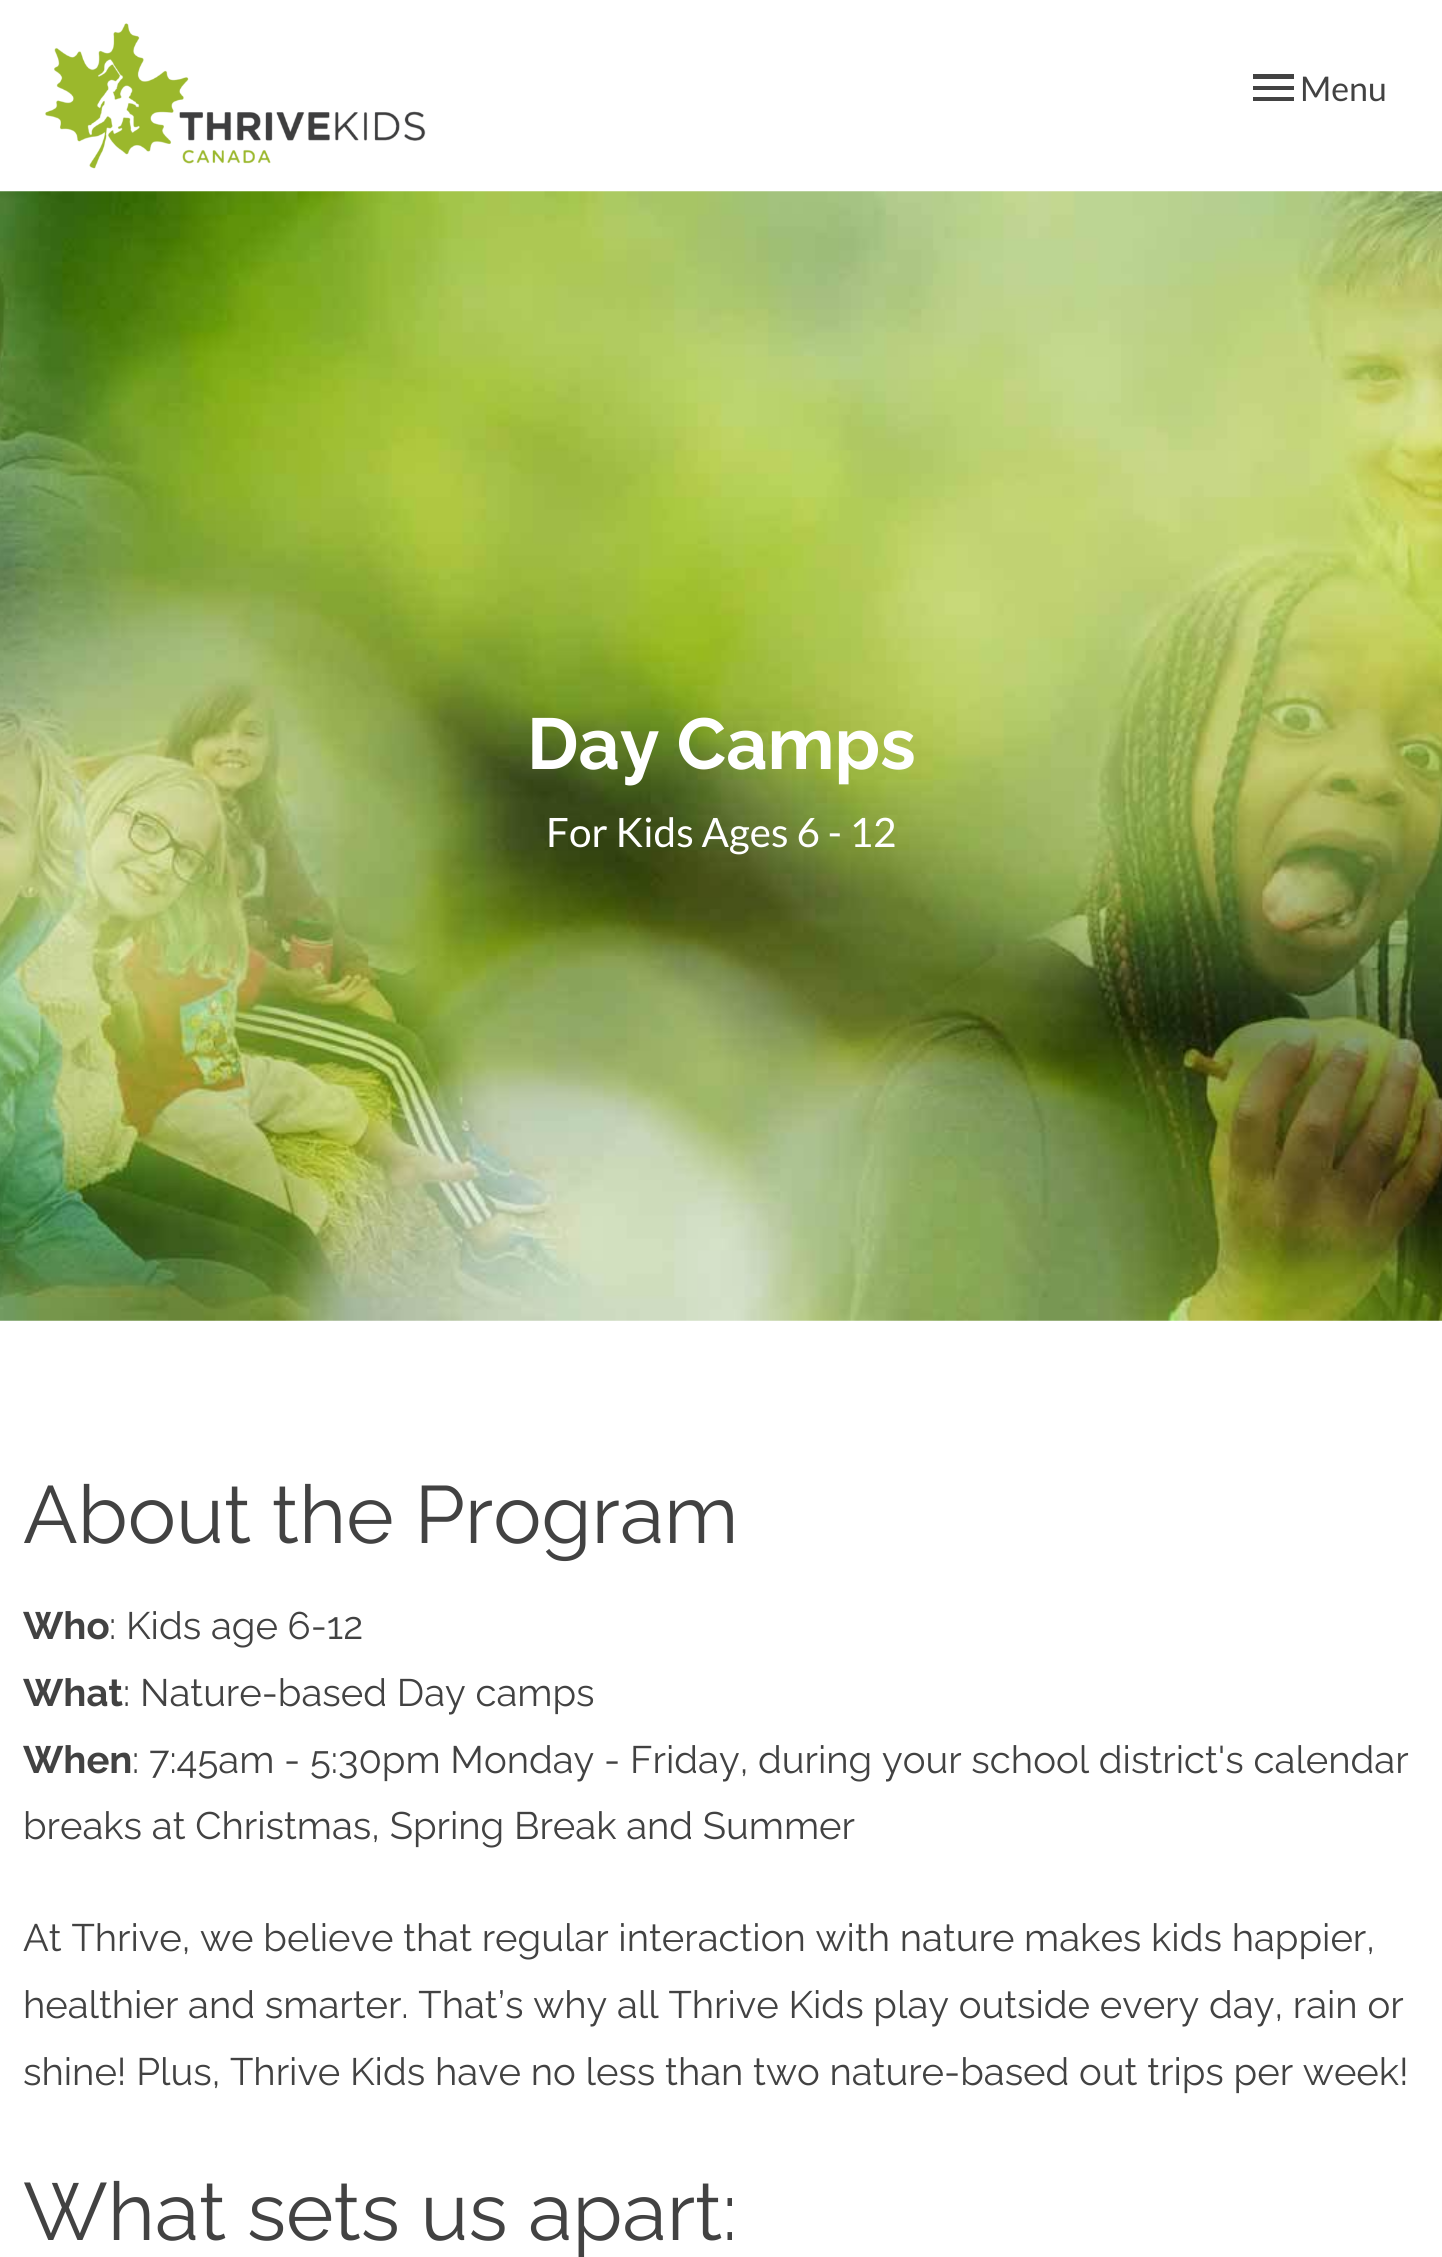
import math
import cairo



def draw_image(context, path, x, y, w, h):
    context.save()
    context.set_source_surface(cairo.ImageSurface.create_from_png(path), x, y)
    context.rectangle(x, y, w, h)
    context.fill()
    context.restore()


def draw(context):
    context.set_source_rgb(1, 1, 1)
    context.paint()
    draw_image(context, "images/1.png", 45, 23, 381, 146)
    context.set_source_rgb(66 / 255, 66 / 255, 66 / 255)
    context.new_path()
    context.move_to(1253, 101)
    context.line_to(1294, 101)
    context.line_to(1294, 97)
    context.line_to(1253, 97)
    context.close_path()
    context.move_to(1253, 90)
    context.line_to(1294, 90)
    context.line_to(1294, 86)
    context.line_to(1253, 86)
    context.close_path()
    context.move_to(1253, 74)
    context.line_to(1253, 79)
    context.line_to(1294, 79)
    context.line_to(1294, 74)
    context.close_path()
    context.fill()
    draw_image(context, "images/2.png", 0, 191, 1442, 1130)
    context.select_font_face("Lato")
    context.set_font_size(34)
    context.move_to(1300, 101)
    context.show_text("Menu")
    context.select_font_face("Raleway", cairo.FontSlant.NORMAL, cairo.FontWeight.BOLD)
    context.set_font_size(72)
    context.set_source_rgb(1, 1, 1)
    context.move_to(527, 769)
    context.show_text("Day Camps")
    context.select_font_face("Lato")
    context.set_font_size(40.5)
    context.move_to(546, 847)
    context.show_text("For Kids Ages 6 - 12")
    context.select_font_face("Raleway")
    context.set_font_size(81)
    context.set_source_rgb(66 / 255, 66 / 255, 66 / 255)
    context.move_to(23, 1543)
    context.show_text("About the Program")
    context.select_font_face("Raleway", cairo.FontSlant.NORMAL, cairo.FontWeight.BOLD)
    context.set_font_size(38.25)
    context.move_to(23, 1639)
    context.show_text("Who")
    context.select_font_face("Raleway")
    context.move_to(109, 1639)
    context.show_text(": Kids age 6-12")
    context.select_font_face("Raleway", cairo.FontSlant.NORMAL, cairo.FontWeight.BOLD)
    context.move_to(23, 1706)
    context.show_text("What")
    context.select_font_face("Raleway")
    context.move_to(123, 1706)
    context.show_text(": Nature-based Day camps")
    context.select_font_face("Raleway", cairo.FontSlant.NORMAL, cairo.FontWeight.BOLD)
    context.move_to(23, 1773)
    context.show_text("When")
    context.select_font_face("Raleway")
    context.move_to(132, 1773)
    context.show_text(": 7:45am - 5:30pm Monday - Friday, during your school district's calendar")
    context.move_to(23, 1839)
    context.show_text("breaks at Christmas, Spring Break and Summer")
    context.move_to(23, 1951)
    context.show_text("At Thrive, we believe that regular interaction with nature makes kids happier,")
    context.move_to(23, 2018)
    context.show_text("healthier and smarter. That’s why all Thrive Kids play outside every day, rain or")
    context.move_to(23, 2085)
    context.show_text("shine! Plus, Thrive Kids have no less than two nature-based out trips per week!")
    context.set_font_size(81)
    context.move_to(23, 2240)
    context.show_text("What sets us apart:")


surface = cairo.ImageSurface(cairo.Format.RGB24, 1442, 2257)
context = cairo.Context(surface)
options = cairo.FontOptions()
options.set_hint_metrics(cairo.HintMetrics.OFF)
options.set_hint_style(cairo.HintStyle.NONE)
context.set_font_options(options)
context.set_miter_limit(4)
draw(context)
surface.write_to_png("out.png")
